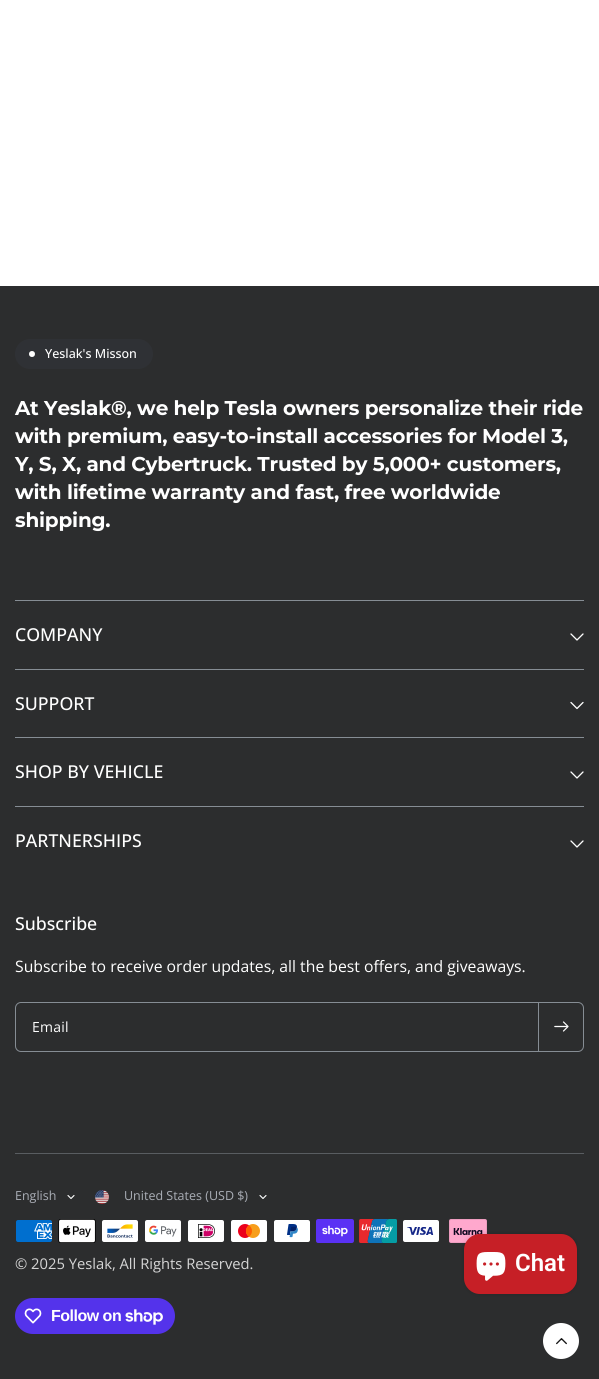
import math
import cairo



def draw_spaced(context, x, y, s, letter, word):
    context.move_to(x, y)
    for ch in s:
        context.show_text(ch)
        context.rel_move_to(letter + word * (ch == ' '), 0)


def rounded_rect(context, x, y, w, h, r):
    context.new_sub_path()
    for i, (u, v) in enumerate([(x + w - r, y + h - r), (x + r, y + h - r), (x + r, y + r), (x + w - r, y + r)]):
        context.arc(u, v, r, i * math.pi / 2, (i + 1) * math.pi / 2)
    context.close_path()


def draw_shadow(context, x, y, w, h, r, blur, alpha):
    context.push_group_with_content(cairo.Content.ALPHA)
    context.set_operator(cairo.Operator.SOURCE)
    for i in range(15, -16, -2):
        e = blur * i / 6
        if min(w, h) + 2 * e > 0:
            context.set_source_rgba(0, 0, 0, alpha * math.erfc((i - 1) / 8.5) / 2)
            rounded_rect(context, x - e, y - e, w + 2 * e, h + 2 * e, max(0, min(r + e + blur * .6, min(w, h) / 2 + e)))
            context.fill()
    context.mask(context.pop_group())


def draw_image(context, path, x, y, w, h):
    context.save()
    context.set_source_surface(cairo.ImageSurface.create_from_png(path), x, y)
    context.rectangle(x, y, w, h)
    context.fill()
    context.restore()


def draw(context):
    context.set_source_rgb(44 / 255, 45 / 255, 46 / 255)
    context.paint()
    context.set_source_rgb(1, 1, 1)
    context.rectangle(0, 0, 599, 286)
    context.fill()
    context.set_source_rgb(47 / 255, 49 / 255, 53 / 255)
    rounded_rect(context, 15, 339, 138, 30, 15)
    context.fill()
    context.set_source_rgb(1, 1, 1)
    context.arc(32, 354, 3, 0, 2 * math.pi)
    context.fill()
    context.set_source_rgb(134 / 255, 141 / 255, 148 / 255)
    context.rectangle(15, 600, 569, 1)
    context.fill()
    context.new_path()
    context.move_to(583, 634)
    context.line_to(577, 640)
    context.line_to(571, 634)
    context.set_source_rgb(1, 1, 1)
    context.set_line_width(1.3)
    context.set_line_cap(cairo.LineCap.ROUND)
    context.set_line_join(cairo.LineJoin.ROUND)
    context.stroke()
    context.set_source_rgb(134 / 255, 141 / 255, 148 / 255)
    context.rectangle(15, 669, 569, 1)
    context.fill()
    context.new_path()
    context.move_to(583, 702.5)
    context.line_to(577, 708.5)
    context.line_to(571, 702.5)
    context.set_source_rgb(1, 1, 1)
    context.stroke()
    context.set_source_rgb(134 / 255, 141 / 255, 148 / 255)
    context.rectangle(15, 737, 569, 1)
    context.fill()
    context.new_path()
    context.move_to(583, 772)
    context.line_to(577, 778)
    context.line_to(571, 772)
    context.set_source_rgb(1, 1, 1)
    context.stroke()
    context.set_source_rgb(134 / 255, 141 / 255, 148 / 255)
    context.rectangle(15, 806, 569, 1)
    context.fill()
    context.new_path()
    context.move_to(583, 841)
    context.line_to(577, 847)
    context.line_to(571, 841)
    context.set_source_rgb(1, 1, 1)
    context.stroke()
    rounded_rect(context, 15.5, 1002.5, 568, 49, 5.5)
    context.set_source_rgb(134 / 255, 141 / 255, 148 / 255)
    context.set_line_width(1)
    context.set_line_cap(cairo.LineCap.BUTT)
    context.set_line_join(cairo.LineJoin.MITER)
    context.stroke()
    context.rectangle(538, 1003, 1, 48)
    context.fill()
    draw_image(context, "images/1.png", 554, 1021, 15, 11)
    context.set_source_rgb(89 / 255, 93 / 255, 97 / 255)
    context.rectangle(15, 1153, 569, 1)
    context.fill()
    context.new_path()
    context.move_to(74, 1195.5)
    context.line_to(71, 1198.5)
    context.line_to(68, 1195.5)
    context.set_source_rgb(1, 1, 1)
    context.set_line_width(1.1)
    context.set_line_cap(cairo.LineCap.ROUND)
    context.set_line_join(cairo.LineJoin.ROUND)
    context.stroke()
    draw_image(context, "images/2.png", 95, 1190, 14, 14)
    context.new_path()
    context.move_to(266, 1195.5)
    context.line_to(263, 1198.5)
    context.line_to(260, 1195.5)
    context.stroke()
    draw_image(context, "images/3.png", 16, 1220, 36, 22)
    draw_image(context, "images/4.png", 58, 1219, 38, 24)
    draw_image(context, "images/5.png", 102, 1220, 36, 22)
    draw_image(context, "images/6.png", 145, 1220, 36, 22)
    draw_image(context, "images/7.png", 188, 1220, 36, 22)
    draw_image(context, "images/8.png", 231, 1220, 36, 22)
    draw_image(context, "images/9.png", 274, 1220, 36, 22)
    draw_image(context, "images/10.png", 316, 1219, 38, 24)
    draw_image(context, "images/11.png", 359, 1219, 38, 24)
    draw_image(context, "images/12.png", 403, 1220, 36, 22)
    draw_image(context, "images/13.png", 449, 1219, 38, 24)
    context.set_source_rgb(84 / 255, 51 / 255, 235 / 255)
    rounded_rect(context, 15, 1298, 160, 36, 18)
    context.fill()
    draw_image(context, "images/14.png", 24, 1308, 18, 16)
    draw_image(context, "images/15.png", 125, 1309, 38, 16)
    context.set_source_rgb(0, 0, 0)
    draw_shadow(context, 464, 1234, 113, 60, 16, 2.5, 0.15)
    context.set_source_rgb(198 / 255, 31 / 255, 38 / 255)
    rounded_rect(context, 464, 1234, 113, 60, 16)
    context.fill()
    draw_image(context, "images/16.png", 476, 1252, 30, 29)
    context.set_source_rgb(1, 1, 1)
    context.arc(561, 1341, 18, 0, 2 * math.pi)
    context.fill()
    draw_image(context, "images/17.png", 556, 1338, 11, 7)
    context.select_font_face("Open Sans Medium")
    context.set_font_size(12.5)
    context.move_to(45, 358)
    context.show_text("Yeslak's Misson")
    context.select_font_face("Montserrat", cairo.FontSlant.NORMAL, cairo.FontWeight.BOLD)
    context.set_font_size(20)
    draw_spaced(context, 15, 415, "At Yeslak®, we help Tesla owners personalize their ride", -0.2, 0)
    draw_spaced(context, 15, 443, "with premium, easy-to-install accessories for Model 3,", -0.2, 0)
    draw_spaced(context, 15, 471, "Y, S, X, and Cybertruck. Trusted by 5,000+ customers,", -0.2, 0)
    draw_spaced(context, 15, 499, "with lifetime warranty and fast, free worldwide", -0.2, 0)
    draw_spaced(context, 15, 527, "shipping.", -0.2, 0)
    context.select_font_face("Open Sans Medium")
    context.set_font_size(17.75)
    context.move_to(15, 641)
    context.show_text("COMPANY")
    context.move_to(15, 710)
    context.show_text("SUPPORT")
    context.move_to(15, 778)
    context.show_text("SHOP BY VEHICLE")
    context.move_to(15, 847)
    context.show_text("PARTNERSHIPS")
    context.move_to(15, 930)
    context.show_text("Subscribe")
    context.select_font_face("Open Sans")
    context.set_font_size(15.75)
    context.move_to(15, 972)
    context.show_text("Subscribe to receive order updates, all the best offers, and giveaways.")
    context.set_font_size(14)
    draw_spaced(context, 32, 1032, "Email", 0.25, 0)
    context.set_font_size(12.5)
    context.set_source_rgb(170 / 255, 174 / 255, 182 / 255)
    context.move_to(15, 1200)
    context.show_text("English")
    context.move_to(124, 1200)
    context.show_text("United States (USD $)")
    context.set_font_size(14.75)
    context.set_source_rgb(213 / 255, 213 / 255, 213 / 255)
    context.move_to(15, 1269)
    context.show_text("© 2025 Yeslak, All Rights Reserved.")
    context.select_font_face("Liberation Sans", cairo.FontSlant.NORMAL, cairo.FontWeight.BOLD)
    context.set_font_size(16)
    context.set_source_rgb(1, 1, 1)
    draw_spaced(context, 51, 1321, "Follow on", -0.5, 0)
    context.select_font_face("Roboto SemiBold")
    context.set_font_size(24)
    context.move_to(515, 1271)
    context.show_text("Chat")


surface = cairo.ImageSurface(cairo.Format.RGB24, 599, 1379)
context = cairo.Context(surface)
options = cairo.FontOptions()
options.set_hint_metrics(cairo.HintMetrics.OFF)
options.set_hint_style(cairo.HintStyle.NONE)
context.set_font_options(options)
context.set_miter_limit(4)
draw(context)
surface.write_to_png("out.png")
